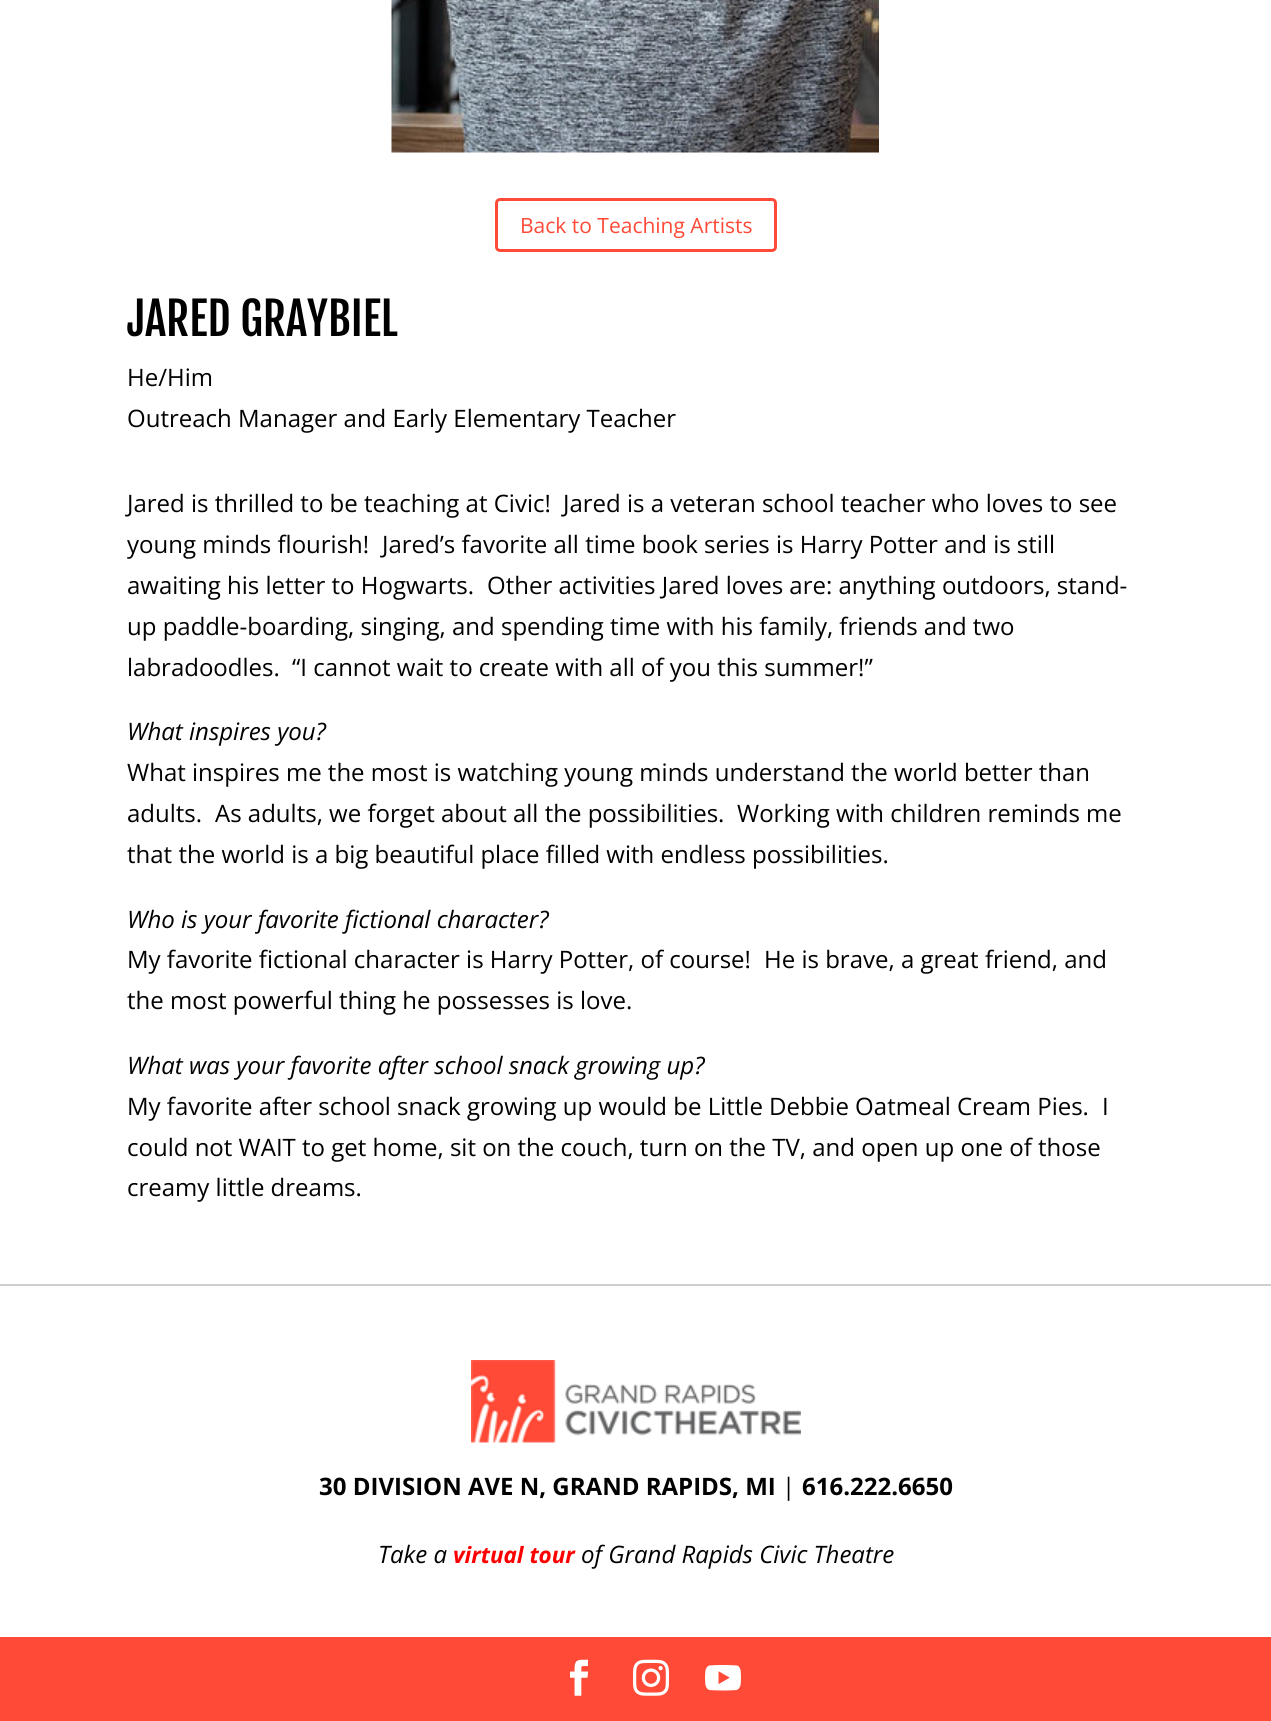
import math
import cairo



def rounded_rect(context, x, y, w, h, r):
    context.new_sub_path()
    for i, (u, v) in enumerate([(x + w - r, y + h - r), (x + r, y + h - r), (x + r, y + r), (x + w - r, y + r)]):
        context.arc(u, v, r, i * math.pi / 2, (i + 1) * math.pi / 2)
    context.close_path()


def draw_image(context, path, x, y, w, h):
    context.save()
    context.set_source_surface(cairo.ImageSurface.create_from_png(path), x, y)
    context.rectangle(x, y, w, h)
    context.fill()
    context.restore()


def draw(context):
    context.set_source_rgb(1, 1, 1)
    context.paint()
    draw_image(context, "images/1.png", 391, 0, 488, 153)
    rounded_rect(context, 496.5, 199.5, 279, 51, 3.5)
    context.set_source_rgb(1, 74 / 255, 55 / 255)
    context.set_line_width(3)
    context.stroke()
    context.set_source_rgb(206 / 255, 206 / 255, 206 / 255)
    context.rectangle(0, 1284, 1271, 2)
    context.fill()
    draw_image(context, "images/2.png", 471, 1360, 330, 83)
    context.set_source_rgb(1, 74 / 255, 55 / 255)
    context.rectangle(0, 1637, 1271, 84)
    context.fill()
    draw_image(context, "images/3.png", 570, 1659, 19, 37)
    draw_image(context, "images/4.png", 633, 1659, 36, 37)
    draw_image(context, "images/5.png", 705, 1665, 36, 26)
    context.select_font_face("Open Sans")
    context.set_font_size(21)
    context.move_to(520, 233)
    context.show_text("Back to Teaching Artists")
    context.select_font_face("Fjalla One")
    context.set_font_size(45)
    context.set_source_rgb(0, 0, 0)
    context.move_to(127, 336)
    context.show_text("JARED GRAYBIEL")
    context.select_font_face("Open Sans")
    context.set_font_size(24)
    context.move_to(127, 386)
    context.show_text("He/Him")
    context.move_to(127, 427)
    context.show_text("Outreach Manager and Early Elementary Teacher")
    context.move_to(127, 512)
    context.show_text("Jared is thrilled to be teaching at Civic!")
    context.move_to(563, 512)
    context.show_text("Jared is a veteran school teacher who loves to see")
    context.move_to(127, 553)
    context.show_text("young minds flourish!")
    context.move_to(382, 553)
    context.show_text("Jared’s favorite all time book series is Harry Potter and is still")
    context.move_to(127, 594)
    context.show_text("awaiting his letter to Hogwarts.")
    context.move_to(487, 594)
    context.show_text("Other activities Jared loves are: anything outdoors, stand-")
    context.move_to(127, 635)
    context.show_text("up paddle-boarding, singing, and spending time with his family, friends and two")
    context.move_to(127, 676)
    context.show_text("labradoodles.")
    context.move_to(292, 676)
    context.show_text("“I cannot wait to create with all of you this summer!”")
    context.select_font_face("Open Sans", cairo.FontSlant.ITALIC)
    context.move_to(127, 740)
    context.show_text("What inspires you?")
    context.select_font_face("Open Sans")
    context.move_to(127, 781)
    context.show_text("What inspires me the most is watching young minds understand the world better than")
    context.move_to(127, 822)
    context.show_text("adults.")
    context.move_to(215, 822)
    context.show_text("As adults, we forget about all the possibilities.")
    context.move_to(737, 822)
    context.show_text("Working with children reminds me")
    context.move_to(127, 863)
    context.show_text("that the world is a big beautiful place filled with endless possibilities.")
    context.select_font_face("Open Sans", cairo.FontSlant.ITALIC)
    context.move_to(127, 928)
    context.show_text("Who is your favorite fictional character?")
    context.select_font_face("Open Sans")
    context.move_to(127, 968)
    context.show_text("My favorite fictional character is Harry Potter, of course!")
    context.move_to(764, 968)
    context.show_text("He is brave, a great friend, and")
    context.move_to(127, 1009)
    context.show_text("the most powerful thing he possesses is love.")
    context.select_font_face("Open Sans", cairo.FontSlant.ITALIC)
    context.move_to(127, 1074)
    context.show_text("What was your favorite after school snack growing up?")
    context.select_font_face("Open Sans")
    context.move_to(127, 1115)
    context.show_text("My favorite after school snack growing up would be Little Debbie Oatmeal Cream Pies.")
    context.move_to(1102, 1115)
    context.show_text("I")
    context.move_to(127, 1156)
    context.show_text("could not WAIT to get home, sit on the couch, turn on the TV, and open up one of those")
    context.move_to(127, 1196)
    context.show_text("creamy little dreams.")
    context.select_font_face("Open Sans", cairo.FontSlant.NORMAL, cairo.FontWeight.BOLD)
    context.move_to(319, 1495)
    context.show_text("30 DIVISION AVE N, GRAND RAPIDS, MI")
    context.select_font_face("Open Sans")
    context.move_to(782, 1495)
    context.show_text("|")
    context.select_font_face("Open Sans", cairo.FontSlant.NORMAL, cairo.FontWeight.BOLD)
    context.move_to(802, 1495)
    context.show_text("616.222.6650")
    context.select_font_face("Open Sans", cairo.FontSlant.ITALIC)
    context.move_to(378, 1563)
    context.show_text("Take a")
    context.select_font_face("Open Sans", cairo.FontSlant.ITALIC, cairo.FontWeight.BOLD)
    context.set_font_size(22.5)
    context.set_source_rgb(1, 0, 0)
    context.move_to(453, 1563)
    context.show_text("virtual tour")
    context.select_font_face("Open Sans", cairo.FontSlant.ITALIC)
    context.set_font_size(24)
    context.set_source_rgb(0, 0, 0)
    context.move_to(581, 1563)
    context.show_text("of Grand Rapids Civic Theatre")


surface = cairo.ImageSurface(cairo.Format.RGB24, 1271, 1721)
context = cairo.Context(surface)
options = cairo.FontOptions()
options.set_hint_metrics(cairo.HintMetrics.OFF)
options.set_hint_style(cairo.HintStyle.NONE)
context.set_font_options(options)
context.set_miter_limit(4)
draw(context)
surface.write_to_png("out.png")
